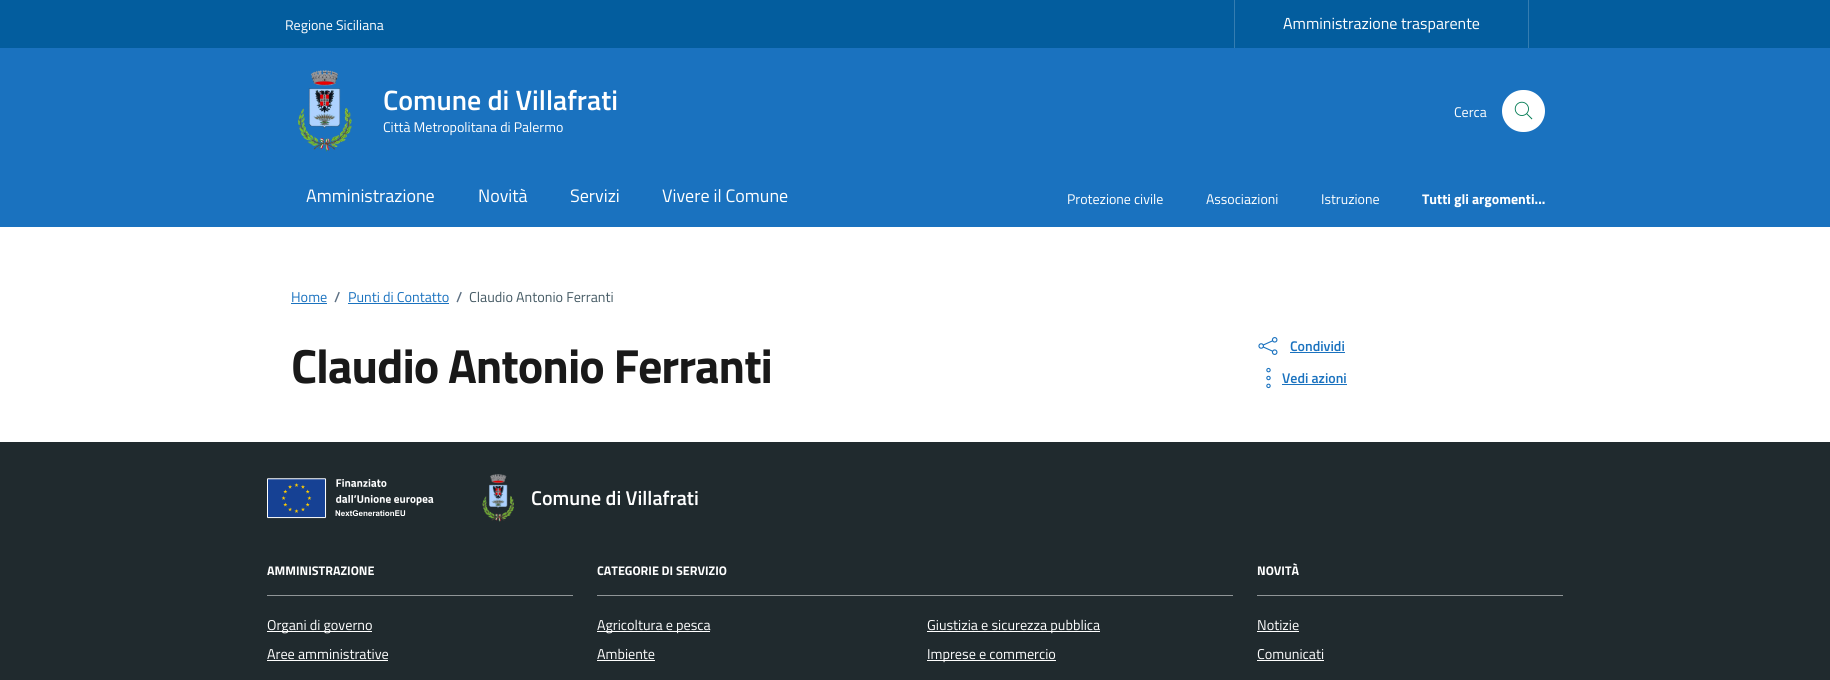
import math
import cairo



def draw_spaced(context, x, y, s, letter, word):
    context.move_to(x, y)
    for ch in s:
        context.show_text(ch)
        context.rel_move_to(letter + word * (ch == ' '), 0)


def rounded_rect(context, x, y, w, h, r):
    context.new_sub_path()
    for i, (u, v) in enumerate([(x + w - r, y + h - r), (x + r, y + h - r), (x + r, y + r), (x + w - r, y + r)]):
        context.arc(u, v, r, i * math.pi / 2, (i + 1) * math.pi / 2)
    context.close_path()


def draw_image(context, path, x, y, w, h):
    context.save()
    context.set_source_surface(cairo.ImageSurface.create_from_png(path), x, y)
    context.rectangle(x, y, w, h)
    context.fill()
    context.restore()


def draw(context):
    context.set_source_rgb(1, 1, 1)
    context.paint()
    context.set_source_rgb(3 / 255, 93 / 255, 158 / 255)
    context.rectangle(0, 0, 1830, 48)
    context.fill()
    context.set_source_rgb(53 / 255, 125 / 255, 177 / 255)
    context.rectangle(1528, 0, 1, 48)
    context.fill()
    context.rectangle(1234, 0, 1, 48)
    context.fill()
    context.set_source_rgb(26 / 255, 114 / 255, 191 / 255)
    context.rectangle(0, 48, 1830, 179)
    context.fill()
    draw_image(context, "images/1.png", 298, 70, 54, 82)
    context.set_source_rgb(1, 1, 1)
    rounded_rect(context, 1502, 90, 43, 42, 21)
    context.fill()
    draw_image(context, "images/2.png", 1514, 101, 19, 19)
    context.set_source_rgb(26 / 255, 114 / 255, 191 / 255)
    context.rectangle(291, 303, 36, 1)
    context.fill()
    context.rectangle(348, 303, 101, 1)
    context.fill()
    draw_image(context, "images/3.png", 1258, 337, 20, 18)
    context.rectangle(1290, 352, 55, 1)
    context.fill()
    draw_image(context, "images/4.png", 1266, 367, 5, 22)
    context.rectangle(1282, 384, 65, 1)
    context.fill()
    context.set_source_rgb(32 / 255, 42 / 255, 46 / 255)
    context.rectangle(0, 442, 1830, 238)
    context.fill()
    draw_image(context, "images/5.png", 267, 478, 167, 41)
    draw_image(context, "images/6.png", 482, 474, 32, 48)
    context.set_source_rgb(144 / 255, 149 / 255, 151 / 255)
    context.rectangle(267, 595, 306, 1)
    context.fill()
    context.set_source_rgb(1, 1, 1)
    context.rectangle(267, 631, 105, 1)
    context.fill()
    context.rectangle(267, 660, 121, 1)
    context.fill()
    context.set_source_rgb(144 / 255, 149 / 255, 151 / 255)
    context.rectangle(597, 595, 636, 1)
    context.fill()
    context.set_source_rgb(1, 1, 1)
    context.rectangle(597, 631, 113, 1)
    context.fill()
    context.rectangle(597, 660, 58, 1)
    context.fill()
    context.rectangle(927, 631, 173, 1)
    context.fill()
    context.rectangle(927, 660, 129, 1)
    context.fill()
    context.set_source_rgb(144 / 255, 149 / 255, 151 / 255)
    context.rectangle(1257, 595, 306, 1)
    context.fill()
    context.set_source_rgb(1, 1, 1)
    context.rectangle(1257, 631, 42, 1)
    context.fill()
    context.rectangle(1257, 660, 67, 1)
    context.fill()
    context.select_font_face("Titillium Web")
    context.set_font_size(14)
    context.move_to(285, 30)
    context.show_text("Regione Siciliana")
    context.set_font_size(16)
    context.move_to(1283, 29)
    context.show_text("Amministrazione trasparente")
    context.select_font_face("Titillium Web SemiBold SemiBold")
    context.set_font_size(28)
    context.move_to(383, 110)
    context.show_text("Comune di Villafrati")
    context.select_font_face("Titillium Web")
    context.set_font_size(14)
    context.move_to(383, 132)
    context.show_text("Città Metropolitana di Palermo")
    context.move_to(1454, 117)
    context.show_text("Cerca")
    context.set_font_size(18)
    context.move_to(306, 202)
    context.show_text("Amministrazione")
    context.move_to(478, 202)
    context.show_text("Novità")
    context.move_to(570, 202)
    context.show_text("Servizi")
    context.move_to(662, 202)
    context.show_text("Vivere il Comune")
    context.set_font_size(14)
    context.move_to(1067, 204)
    context.show_text("Protezione civile")
    context.move_to(1206, 204)
    context.show_text("Associazioni")
    context.move_to(1321, 204)
    context.show_text("Istruzione")
    context.select_font_face("Titillium Web", cairo.FontSlant.NORMAL, cairo.FontWeight.BOLD)
    context.move_to(1422, 204)
    context.show_text("Tutti gli argomenti...")
    context.select_font_face("Titillium Web")
    context.set_font_size(14.25)
    context.set_source_rgb(26 / 255, 114 / 255, 191 / 255)
    context.move_to(291, 302)
    context.show_text("Home")
    context.select_font_face("Titillium Web SemiBold SemiBold")
    context.set_source_rgb(93 / 255, 112 / 255, 131 / 255)
    context.move_to(334, 302)
    context.show_text("/")
    context.select_font_face("Titillium Web")
    context.set_source_rgb(26 / 255, 114 / 255, 191 / 255)
    context.move_to(348, 302)
    context.show_text("Punti di Contatto")
    context.select_font_face("Titillium Web SemiBold SemiBold")
    context.set_source_rgb(93 / 255, 112 / 255, 131 / 255)
    context.move_to(456, 302)
    context.show_text("/")
    context.select_font_face("Titillium Web")
    context.set_source_rgb(69 / 255, 90 / 255, 100 / 255)
    context.move_to(469, 302)
    context.show_text("Claudio Antonio Ferranti")
    context.select_font_face("Titillium Web", cairo.FontSlant.NORMAL, cairo.FontWeight.BOLD)
    context.set_font_size(48)
    context.set_source_rgb(25 / 255, 25 / 255, 25 / 255)
    draw_spaced(context, 291, 383, "Claudio Antonio Ferranti", -1, 0)
    context.select_font_face("Titillium Web SemiBold SemiBold")
    context.set_font_size(14)
    context.set_source_rgb(26 / 255, 114 / 255, 191 / 255)
    context.move_to(1290, 351)
    context.show_text("Condividi")
    context.move_to(1282, 383)
    context.show_text("Vedi azioni")
    context.set_font_size(20)
    context.set_source_rgb(1, 1, 1)
    context.move_to(531, 505)
    context.show_text("Comune di Villafrati")
    context.select_font_face("Titillium Web", cairo.FontSlant.NORMAL, cairo.FontWeight.BOLD)
    context.set_font_size(12.5)
    context.move_to(267, 575)
    context.show_text("AMMINISTRAZIONE")
    context.select_font_face("Titillium Web")
    context.set_font_size(14.25)
    context.move_to(267, 630)
    context.show_text("Organi di governo")
    context.move_to(267, 659)
    context.show_text("Aree amministrative")
    context.select_font_face("Titillium Web", cairo.FontSlant.NORMAL, cairo.FontWeight.BOLD)
    context.set_font_size(12.5)
    context.move_to(597, 575)
    context.show_text("CATEGORIE DI SERVIZIO")
    context.select_font_face("Titillium Web")
    context.set_font_size(14.25)
    context.move_to(597, 630)
    context.show_text("Agricoltura e pesca")
    context.move_to(597, 659)
    context.show_text("Ambiente")
    context.move_to(927, 630)
    context.show_text("Giustizia e sicurezza pubblica")
    context.move_to(927, 659)
    context.show_text("Imprese e commercio")
    context.select_font_face("Titillium Web", cairo.FontSlant.NORMAL, cairo.FontWeight.BOLD)
    context.set_font_size(12.5)
    context.move_to(1257, 575)
    context.show_text("NOVITÀ")
    context.select_font_face("Titillium Web")
    context.set_font_size(14.25)
    context.move_to(1257, 630)
    context.show_text("Notizie")
    context.move_to(1257, 659)
    context.show_text("Comunicati")


surface = cairo.ImageSurface(cairo.Format.RGB24, 1830, 680)
context = cairo.Context(surface)
options = cairo.FontOptions()
options.set_hint_metrics(cairo.HintMetrics.OFF)
options.set_hint_style(cairo.HintStyle.NONE)
context.set_font_options(options)
context.set_miter_limit(4)
draw(context)
surface.write_to_png("out.png")
